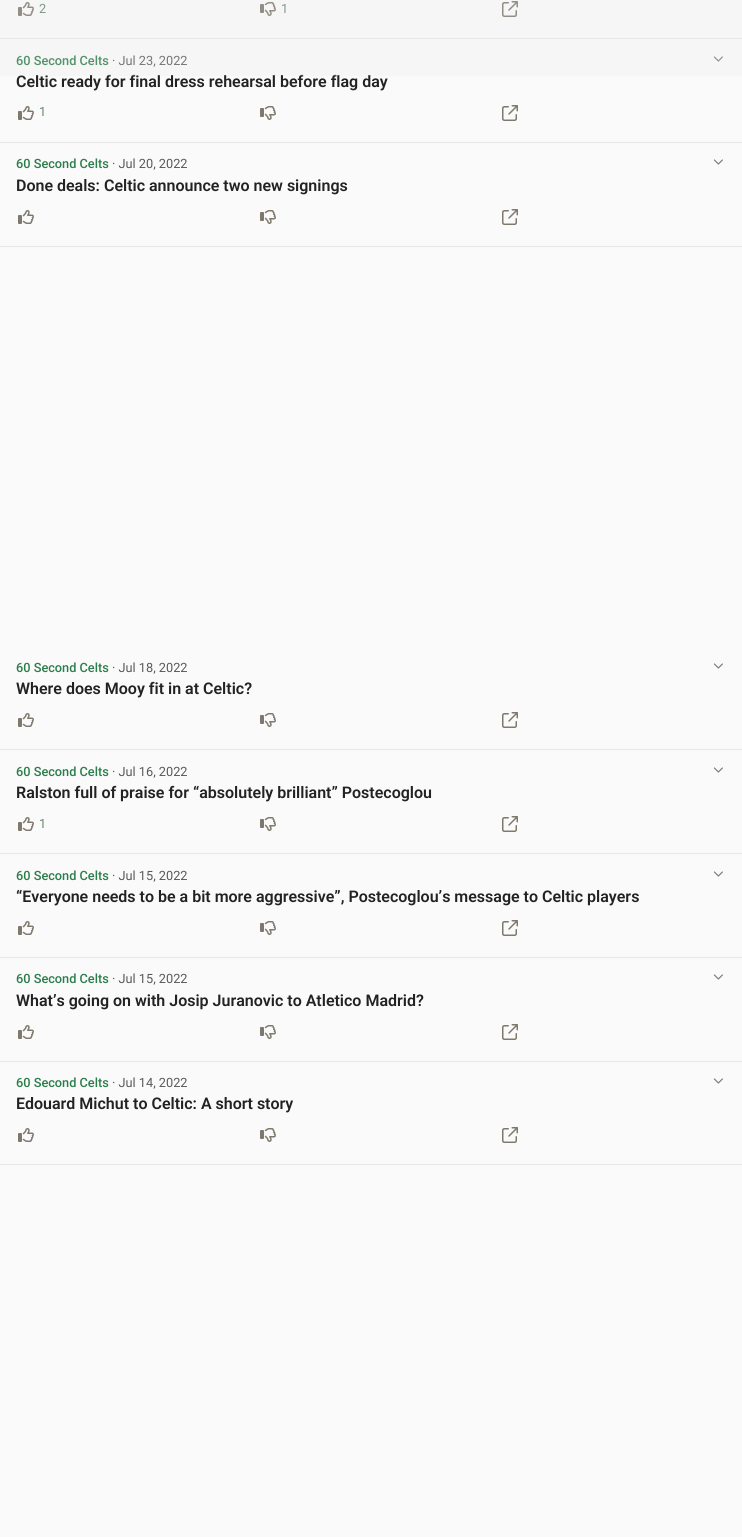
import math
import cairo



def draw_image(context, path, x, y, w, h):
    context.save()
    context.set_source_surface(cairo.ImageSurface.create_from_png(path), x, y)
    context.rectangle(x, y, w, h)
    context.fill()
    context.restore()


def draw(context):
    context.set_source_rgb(250 / 255, 250 / 255, 250 / 255)
    context.paint()
    context.set_source_rgb(231 / 255, 231 / 255, 231 / 255)
    context.rectangle(0, 38, 742, 1)
    context.fill()
    draw_image(context, "images/1.png", 18, 2, 16, 14)
    draw_image(context, "images/2.png", 260, 2, 16, 14)
    draw_image(context, "images/3.png", 502, 1, 16, 16)
    context.rectangle(0, 142, 742, 1)
    context.fill()
    draw_image(context, "images/4.png", 713, 56, 10, 6)
    draw_image(context, "images/1.png", 18, 106, 16, 14)
    draw_image(context, "images/2.png", 260, 106, 16, 14)
    draw_image(context, "images/3.png", 502, 105, 16, 16)
    context.rectangle(0, 246, 742, 1)
    context.fill()
    draw_image(context, "images/4.png", 713, 159, 10, 6)
    draw_image(context, "images/1.png", 18, 210, 16, 14)
    draw_image(context, "images/2.png", 260, 210, 16, 14)
    draw_image(context, "images/3.png", 502, 209, 16, 16)
    context.rectangle(0, 749, 742, 1)
    context.fill()
    draw_image(context, "images/4.png", 713, 663, 10, 6)
    draw_image(context, "images/1.png", 18, 713, 16, 14)
    draw_image(context, "images/2.png", 260, 713, 16, 14)
    draw_image(context, "images/3.png", 502, 712, 16, 16)
    context.rectangle(0, 853, 742, 1)
    context.fill()
    draw_image(context, "images/4.png", 713, 767, 10, 6)
    draw_image(context, "images/1.png", 18, 817, 16, 14)
    draw_image(context, "images/2.png", 260, 817, 16, 14)
    draw_image(context, "images/3.png", 502, 816, 16, 16)
    context.rectangle(0, 957, 742, 1)
    context.fill()
    draw_image(context, "images/4.png", 713, 871, 10, 6)
    draw_image(context, "images/1.png", 18, 921, 16, 14)
    draw_image(context, "images/2.png", 260, 921, 16, 14)
    draw_image(context, "images/3.png", 502, 920, 16, 16)
    context.rectangle(0, 1061, 742, 1)
    context.fill()
    draw_image(context, "images/4.png", 713, 974, 10, 6)
    draw_image(context, "images/1.png", 18, 1025, 16, 14)
    draw_image(context, "images/2.png", 260, 1025, 16, 14)
    draw_image(context, "images/3.png", 502, 1024, 16, 16)
    context.rectangle(0, 1164, 742, 1)
    context.fill()
    draw_image(context, "images/4.png", 713, 1078, 10, 6)
    draw_image(context, "images/1.png", 18, 1128, 16, 14)
    draw_image(context, "images/2.png", 260, 1128, 16, 14)
    draw_image(context, "images/3.png", 502, 1127, 16, 16)
    context.select_font_face("Roboto")
    context.set_font_size(12.75)
    context.set_source_rgb(101 / 255, 134 / 255, 114 / 255)
    context.move_to(39, 13)
    context.show_text("2")
    context.move_to(281, 13)
    context.show_text("1")
    context.select_font_face("Roboto Medium")
    context.set_source_rgb(44 / 255, 125 / 255, 76 / 255)
    context.move_to(16, 65)
    context.show_text("60 Second Celts")
    context.select_font_face("Roboto")
    context.set_source_rgb(89 / 255, 89 / 255, 89 / 255)
    context.move_to(112, 65)
    context.show_text("· Jul 23, 2022")
    context.select_font_face("Roboto SemiBold")
    context.set_font_size(16)
    context.set_source_rgb(34 / 255, 34 / 255, 34 / 255)
    context.move_to(16, 87)
    context.show_text("Celtic ready for final dress rehearsal before flag day")
    context.set_source_rgba(231 / 255, 231 / 255, 231 / 255, 0.2)
    context.rectangle(0, 0, 742, 76)
    context.fill()
    context.select_font_face("Roboto")
    context.set_font_size(12.75)
    context.set_source_rgb(101 / 255, 134 / 255, 114 / 255)
    context.move_to(39, 116)
    context.show_text("1")
    context.select_font_face("Roboto Medium")
    context.set_source_rgb(44 / 255, 125 / 255, 76 / 255)
    context.move_to(16, 168)
    context.show_text("60 Second Celts")
    context.select_font_face("Roboto")
    context.set_source_rgb(89 / 255, 89 / 255, 89 / 255)
    context.move_to(112, 168)
    context.show_text("· Jul 20, 2022")
    context.select_font_face("Roboto SemiBold")
    context.set_font_size(16)
    context.set_source_rgb(34 / 255, 34 / 255, 34 / 255)
    context.move_to(16, 191)
    context.show_text("Done deals: Celtic announce two new signings")
    context.select_font_face("Roboto Medium")
    context.set_font_size(12.75)
    context.set_source_rgb(44 / 255, 125 / 255, 76 / 255)
    context.move_to(16, 672)
    context.show_text("60 Second Celts")
    context.select_font_face("Roboto")
    context.set_source_rgb(89 / 255, 89 / 255, 89 / 255)
    context.move_to(112, 672)
    context.show_text("· Jul 18, 2022")
    context.select_font_face("Roboto SemiBold")
    context.set_font_size(16)
    context.set_source_rgb(34 / 255, 34 / 255, 34 / 255)
    context.move_to(16, 694)
    context.show_text("Where does Mooy fit in at Celtic?")
    context.select_font_face("Roboto Medium")
    context.set_font_size(12.75)
    context.set_source_rgb(44 / 255, 125 / 255, 76 / 255)
    context.move_to(16, 776)
    context.show_text("60 Second Celts")
    context.select_font_face("Roboto")
    context.set_source_rgb(89 / 255, 89 / 255, 89 / 255)
    context.move_to(112, 776)
    context.show_text("· Jul 16, 2022")
    context.select_font_face("Roboto SemiBold")
    context.set_font_size(16)
    context.set_source_rgb(34 / 255, 34 / 255, 34 / 255)
    context.move_to(16, 798)
    context.show_text("Ralston full of praise for “absolutely brilliant” Postecoglou")
    context.select_font_face("Roboto")
    context.set_font_size(12.75)
    context.set_source_rgb(101 / 255, 134 / 255, 114 / 255)
    context.move_to(39, 828)
    context.show_text("1")
    context.select_font_face("Roboto Medium")
    context.set_source_rgb(44 / 255, 125 / 255, 76 / 255)
    context.move_to(16, 880)
    context.show_text("60 Second Celts")
    context.select_font_face("Roboto")
    context.set_source_rgb(89 / 255, 89 / 255, 89 / 255)
    context.move_to(112, 880)
    context.show_text("· Jul 15, 2022")
    context.select_font_face("Roboto SemiBold")
    context.set_font_size(16)
    context.set_source_rgb(34 / 255, 34 / 255, 34 / 255)
    context.move_to(16, 902)
    context.show_text("“Everyone needs to be a bit more aggressive”, Postecoglou’s message to Celtic players")
    context.select_font_face("Roboto Medium")
    context.set_font_size(12.75)
    context.set_source_rgb(44 / 255, 125 / 255, 76 / 255)
    context.move_to(16, 983)
    context.show_text("60 Second Celts")
    context.select_font_face("Roboto")
    context.set_source_rgb(89 / 255, 89 / 255, 89 / 255)
    context.move_to(112, 983)
    context.show_text("· Jul 15, 2022")
    context.select_font_face("Roboto SemiBold")
    context.set_font_size(16)
    context.set_source_rgb(34 / 255, 34 / 255, 34 / 255)
    context.move_to(16, 1006)
    context.show_text("What’s going on with Josip Juranovic to Atletico Madrid?")
    context.select_font_face("Roboto Medium")
    context.set_font_size(12.75)
    context.set_source_rgb(44 / 255, 125 / 255, 76 / 255)
    context.move_to(16, 1087)
    context.show_text("60 Second Celts")
    context.select_font_face("Roboto")
    context.set_source_rgb(89 / 255, 89 / 255, 89 / 255)
    context.move_to(112, 1087)
    context.show_text("· Jul 14, 2022")
    context.select_font_face("Roboto SemiBold")
    context.set_font_size(16)
    context.set_source_rgb(34 / 255, 34 / 255, 34 / 255)
    context.move_to(16, 1109)
    context.show_text("Edouard Michut to Celtic: A short story")


surface = cairo.ImageSurface(cairo.Format.RGB24, 742, 1537)
context = cairo.Context(surface)
options = cairo.FontOptions()
options.set_hint_metrics(cairo.HintMetrics.OFF)
options.set_hint_style(cairo.HintStyle.NONE)
context.set_font_options(options)
context.set_miter_limit(4)
draw(context)
surface.write_to_png("out.png")
